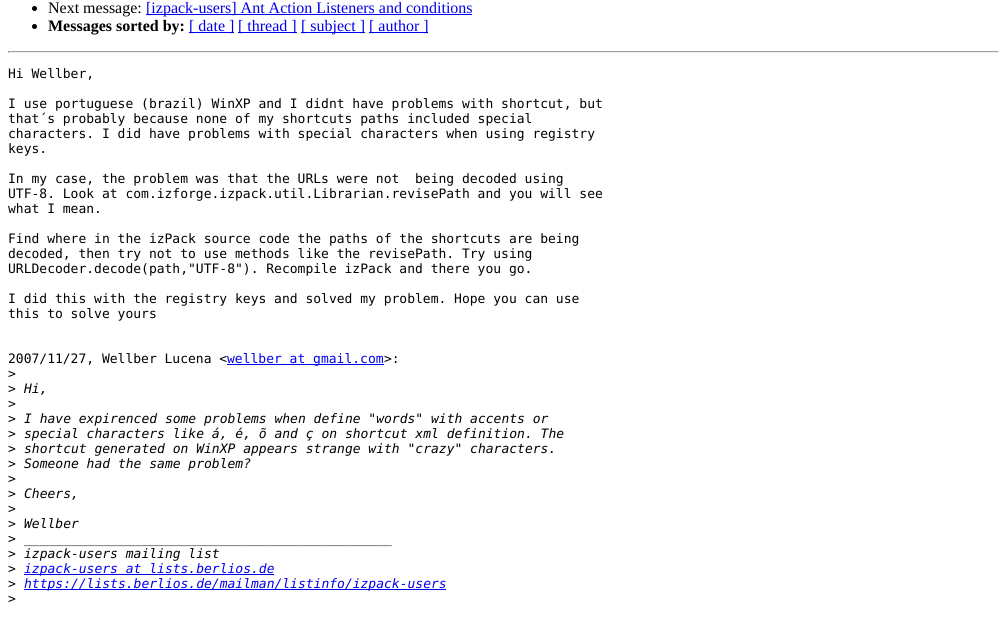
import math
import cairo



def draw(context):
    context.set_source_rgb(1, 1, 1)
    context.paint()
    context.set_source_rgb(0, 0, 0)
    context.arc(34.5, 8.5, 2.5, 0, 2 * math.pi)
    context.fill()
    context.set_source_rgb(0, 0, 238 / 255)
    context.rectangle(146, 14, 326, 1)
    context.fill()
    context.set_source_rgb(0, 0, 0)
    context.arc(34.5, 26.5, 2.5, 0, 2 * math.pi)
    context.fill()
    context.set_source_rgb(0, 0, 238 / 255)
    context.rectangle(189, 32, 45, 1)
    context.fill()
    context.rectangle(238, 32, 59, 1)
    context.fill()
    context.rectangle(301, 32, 64, 1)
    context.fill()
    context.rectangle(369, 32, 59, 1)
    context.fill()
    context.set_source_rgb(159 / 255, 159 / 255, 159 / 255)
    context.rectangle(8, 51, 991, 1)
    context.fill()
    context.set_source_rgb(238 / 255, 238 / 255, 238 / 255)
    context.rectangle(998, 51, 1, 2)
    context.fill()
    context.rectangle(8, 52, 991, 1)
    context.fill()
    context.set_source_rgb(159 / 255, 159 / 255, 159 / 255)
    context.rectangle(8, 51, 1, 2)
    context.fill()
    context.set_source_rgb(0, 0, 238 / 255)
    context.rectangle(227, 364, 157, 1)
    context.fill()
    context.rectangle(24, 574, 250, 1)
    context.fill()
    context.rectangle(24, 589, 422, 1)
    context.fill()
    context.select_font_face("Liberation Serif")
    context.set_font_size(16)
    context.set_source_rgb(0, 0, 0)
    context.move_to(48, 13)
    context.show_text("Next message:")
    context.set_source_rgb(0, 0, 238 / 255)
    context.move_to(146, 13)
    context.show_text("[izpack-users] Ant Action Listeners and conditions")
    context.select_font_face("Liberation Serif", cairo.FontSlant.NORMAL, cairo.FontWeight.BOLD)
    context.set_source_rgb(0, 0, 0)
    context.move_to(48, 31)
    context.show_text("Messages sorted by:")
    context.select_font_face("Liberation Serif")
    context.set_source_rgb(0, 0, 238 / 255)
    context.move_to(189, 31)
    context.show_text("[ date ]")
    context.move_to(238, 31)
    context.show_text("[ thread ]")
    context.move_to(301, 31)
    context.show_text("[ subject ]")
    context.move_to(369, 31)
    context.show_text("[ author ]")
    context.select_font_face("DejaVu Sans Mono")
    context.set_font_size(13)
    context.set_source_rgb(0, 0, 0)
    context.move_to(8, 78)
    context.show_text("Hi Wellber,")
    context.move_to(8, 108)
    context.show_text("I use portuguese (brazil) WinXP and I didnt have problems with shortcut, but")
    context.move_to(8, 123)
    context.show_text("that´s probably because none of my shortcuts paths included special")
    context.move_to(8, 138)
    context.show_text("characters. I did have problems with special characters when using registry")
    context.move_to(8, 153)
    context.show_text("keys.")
    context.move_to(8, 183)
    context.show_text("In my case, the problem was that the URLs were not  being decoded using")
    context.move_to(8, 198)
    context.show_text("UTF-8. Look at com.izforge.izpack.util.Librarian.revisePath and you will see")
    context.move_to(8, 213)
    context.show_text("what I mean.")
    context.move_to(8, 243)
    context.show_text("Find where in the izPack source code the paths of the shortcuts are being")
    context.move_to(8, 258)
    context.show_text("decoded, then try not to use methods like the revisePath. Try using")
    context.move_to(8, 273)
    context.show_text("URLDecoder.decode(path,\"UTF-8\"). Recompile izPack and there you go.")
    context.move_to(8, 303)
    context.show_text("I did this with the registry keys and solved my problem. Hope you can use")
    context.move_to(8, 318)
    context.show_text("this to solve yours")
    context.move_to(8, 363)
    context.show_text("2007/11/27, Wellber Lucena <")
    context.set_source_rgb(0, 0, 238 / 255)
    context.move_to(227, 363)
    context.show_text("wellber at gmail.com")
    context.set_source_rgb(0, 0, 0)
    context.move_to(384, 363)
    context.show_text(">:")
    context.move_to(8, 378)
    context.show_text(">")
    context.move_to(8, 393)
    context.show_text(">")
    context.select_font_face("DejaVu Sans Mono", cairo.FontSlant.ITALIC)
    context.move_to(24, 393)
    context.show_text("Hi,")
    context.select_font_face("DejaVu Sans Mono")
    context.move_to(8, 408)
    context.show_text(">")
    context.move_to(8, 423)
    context.show_text(">")
    context.select_font_face("DejaVu Sans Mono", cairo.FontSlant.ITALIC)
    context.move_to(24, 423)
    context.show_text("I have expirenced some problems when define \"words\" with accents or")
    context.select_font_face("DejaVu Sans Mono")
    context.move_to(8, 438)
    context.show_text(">")
    context.select_font_face("DejaVu Sans Mono", cairo.FontSlant.ITALIC)
    context.move_to(24, 438)
    context.show_text("special characters like á, é, õ and ç on shortcut xml definition. The")
    context.select_font_face("DejaVu Sans Mono")
    context.move_to(8, 453)
    context.show_text(">")
    context.select_font_face("DejaVu Sans Mono", cairo.FontSlant.ITALIC)
    context.move_to(24, 453)
    context.show_text("shortcut generated on WinXP appears strange with \"crazy\" characters.")
    context.select_font_face("DejaVu Sans Mono")
    context.move_to(8, 468)
    context.show_text(">")
    context.select_font_face("DejaVu Sans Mono", cairo.FontSlant.ITALIC)
    context.move_to(24, 468)
    context.show_text("Someone had the same problem?")
    context.select_font_face("DejaVu Sans Mono")
    context.move_to(8, 483)
    context.show_text(">")
    context.move_to(8, 498)
    context.show_text(">")
    context.select_font_face("DejaVu Sans Mono", cairo.FontSlant.ITALIC)
    context.move_to(24, 498)
    context.show_text("Cheers,")
    context.select_font_face("DejaVu Sans Mono")
    context.move_to(8, 513)
    context.show_text(">")
    context.move_to(8, 528)
    context.show_text(">")
    context.select_font_face("DejaVu Sans Mono", cairo.FontSlant.ITALIC)
    context.move_to(24, 528)
    context.show_text("Wellber")
    context.select_font_face("DejaVu Sans Mono")
    context.move_to(8, 543)
    context.show_text(">")
    context.select_font_face("DejaVu Sans Mono", cairo.FontSlant.ITALIC)
    context.move_to(24, 543)
    context.show_text("_______________________________________________")
    context.select_font_face("DejaVu Sans Mono")
    context.move_to(8, 558)
    context.show_text(">")
    context.select_font_face("DejaVu Sans Mono", cairo.FontSlant.ITALIC)
    context.move_to(24, 558)
    context.show_text("izpack-users mailing list")
    context.select_font_face("DejaVu Sans Mono")
    context.move_to(8, 573)
    context.show_text(">")
    context.select_font_face("DejaVu Sans Mono", cairo.FontSlant.ITALIC)
    context.set_source_rgb(0, 0, 238 / 255)
    context.move_to(24, 573)
    context.show_text("izpack-users at lists.berlios.de")
    context.select_font_face("DejaVu Sans Mono")
    context.set_source_rgb(0, 0, 0)
    context.move_to(8, 588)
    context.show_text(">")
    context.select_font_face("DejaVu Sans Mono", cairo.FontSlant.ITALIC)
    context.set_source_rgb(0, 0, 238 / 255)
    context.move_to(24, 588)
    context.show_text("https://lists.berlios.de/mailman/listinfo/izpack-users")
    context.select_font_face("DejaVu Sans Mono")
    context.set_source_rgb(0, 0, 0)
    context.move_to(8, 603)
    context.show_text(">")


surface = cairo.ImageSurface(cairo.Format.RGB24, 1007, 621)
context = cairo.Context(surface)
options = cairo.FontOptions()
options.set_hint_metrics(cairo.HintMetrics.OFF)
options.set_hint_style(cairo.HintStyle.NONE)
context.set_font_options(options)
context.set_miter_limit(4)
draw(context)
surface.write_to_png("out.png")
